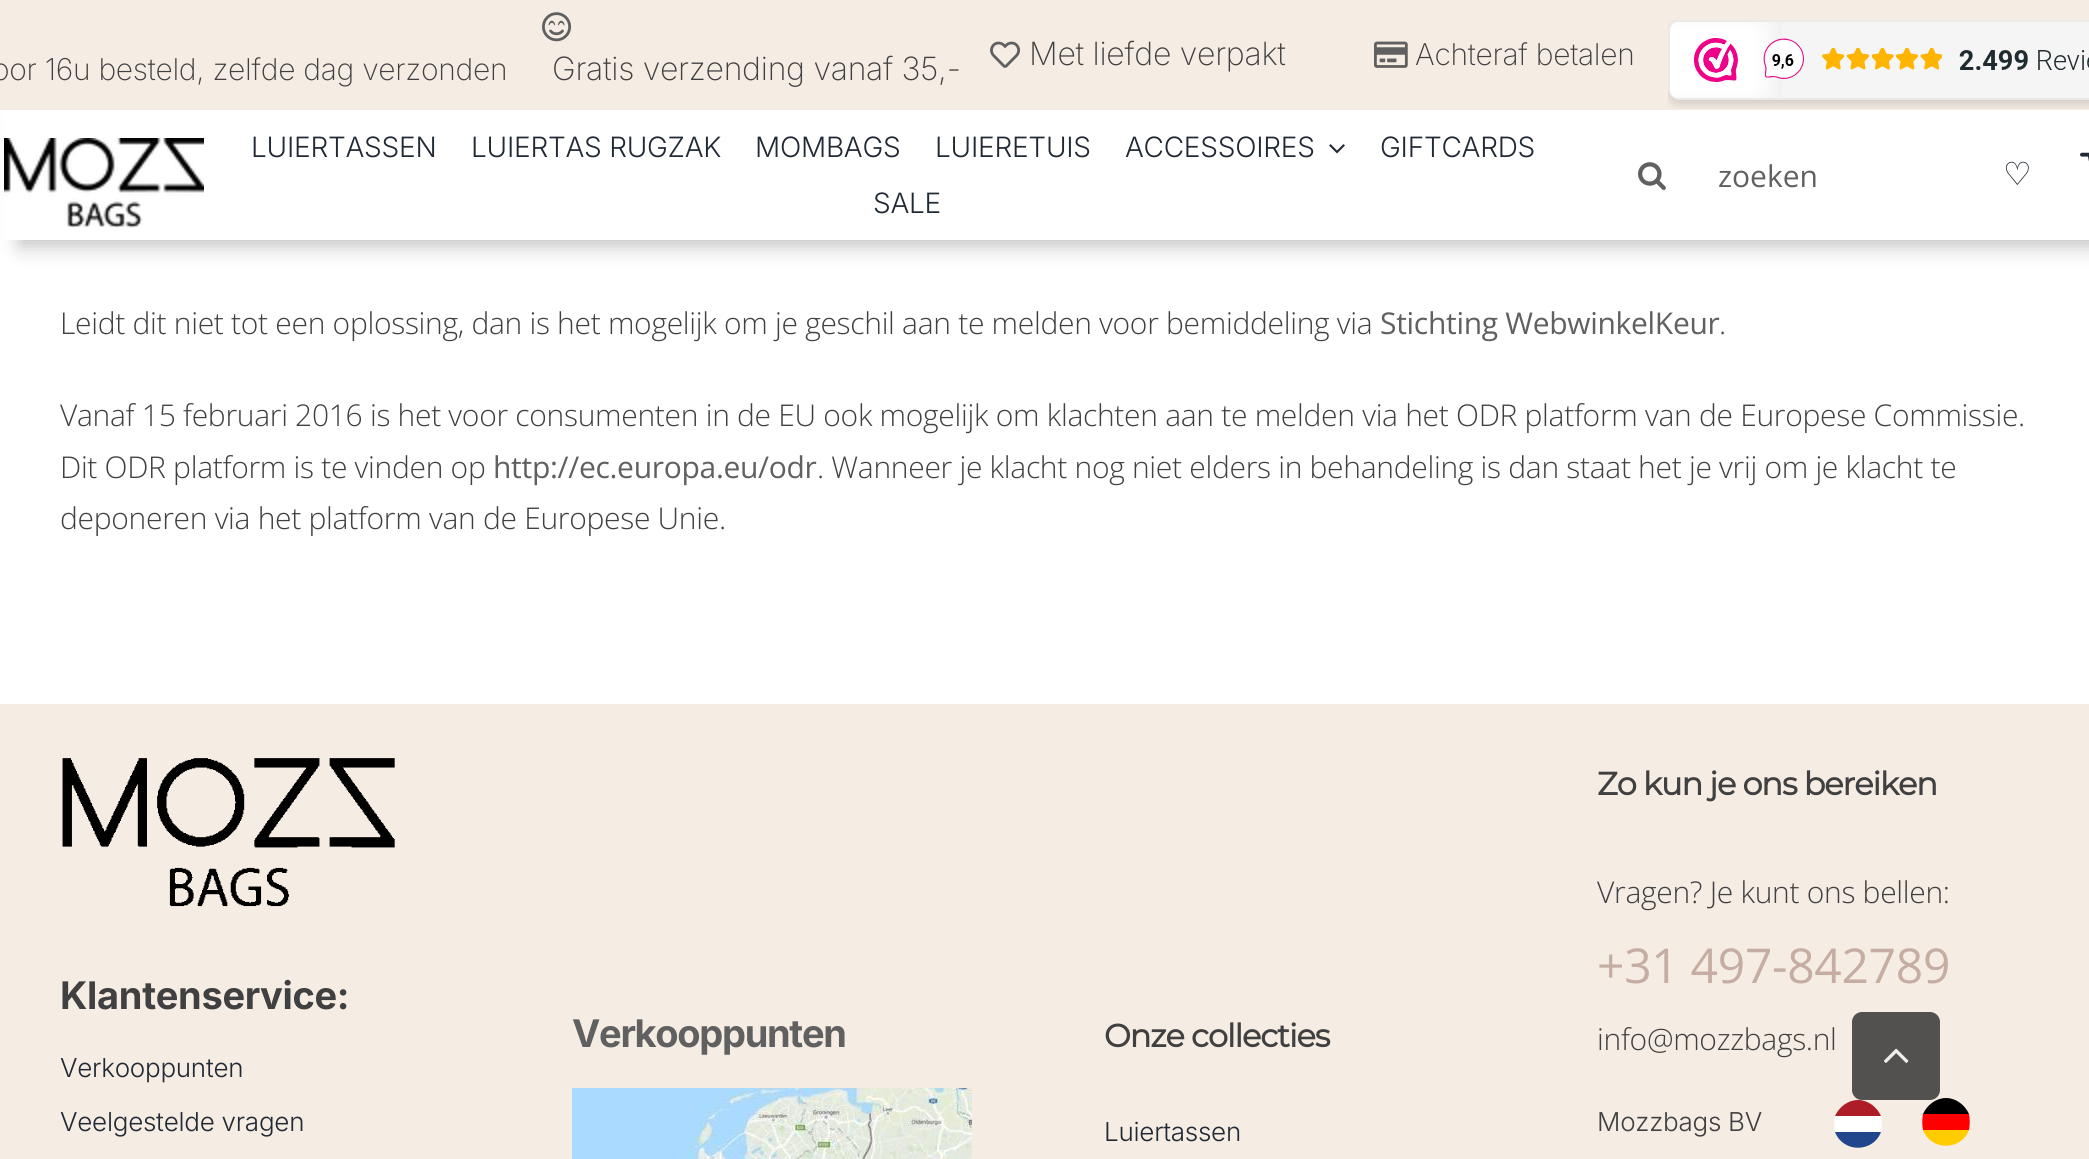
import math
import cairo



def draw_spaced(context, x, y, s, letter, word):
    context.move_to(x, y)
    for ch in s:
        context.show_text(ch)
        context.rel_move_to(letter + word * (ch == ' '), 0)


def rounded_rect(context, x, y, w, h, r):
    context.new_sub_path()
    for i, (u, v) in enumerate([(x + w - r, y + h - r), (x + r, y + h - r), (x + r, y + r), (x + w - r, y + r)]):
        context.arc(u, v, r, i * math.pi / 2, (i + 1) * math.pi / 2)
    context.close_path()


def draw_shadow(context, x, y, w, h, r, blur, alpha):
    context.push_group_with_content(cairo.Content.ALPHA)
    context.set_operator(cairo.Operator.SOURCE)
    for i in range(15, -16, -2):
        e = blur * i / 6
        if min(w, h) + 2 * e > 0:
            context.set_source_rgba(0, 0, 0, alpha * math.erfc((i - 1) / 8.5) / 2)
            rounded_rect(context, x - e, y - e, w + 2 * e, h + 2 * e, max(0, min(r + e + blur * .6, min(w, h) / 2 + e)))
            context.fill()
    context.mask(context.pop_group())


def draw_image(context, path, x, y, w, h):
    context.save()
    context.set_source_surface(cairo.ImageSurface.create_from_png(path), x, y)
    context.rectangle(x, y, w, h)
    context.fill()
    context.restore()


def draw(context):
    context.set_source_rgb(1, 1, 1)
    context.paint()
    context.set_source_rgb(193 / 255, 193 / 255, 193 / 255)
    draw_shadow(context, 20, 116, 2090, 130, 0, 10, 1)
    context.set_source_rgb(245 / 255, 236 / 255, 228 / 255)
    context.rectangle(0, 0, 2089, 110)
    context.fill()
    draw_image(context, "images/1.png", 542, 12, 30, 30)
    draw_image(context, "images/2.png", 990, 41, 31, 27)
    draw_image(context, "images/3.png", 1374, 41, 34, 27)
    draw_image(context, "images/4.png", 1668, 20, 421, 89)
    context.set_source_rgb(1, 1, 1)
    context.rectangle(3, 110, 2086, 130)
    context.fill()
    draw_image(context, "images/5.png", 4, 138, 200, 90)
    draw_image(context, "images/6.png", 1329, 144, 16, 10)
    draw_image(context, "images/7.png", 1638, 162, 28, 28)
    draw_image(context, "images/8.png", 2080, 152, 9, 10)
    context.set_source_rgb(245 / 255, 236 / 255, 228 / 255)
    context.rectangle(0, 704, 2089, 455)
    context.fill()
    draw_image(context, "images/9.png", 62, 758, 333, 149)
    draw_image(context, "images/10.png", 572, 1088, 400, 71)
    context.set_source_rgb(0, 0, 1 / 255)
    context.new_path()
    context.move_to(1946, 1098)
    context.curve_to(1956, 1098, 1965, 1105, 1969, 1114)
    context.line_to(1923, 1114)
    context.curve_to(1927, 1105, 1936, 1098, 1946, 1098)
    context.close_path()
    context.fill()
    context.set_source_rgb(82 / 255, 81 / 255, 80 / 255)
    rounded_rect(context, 1852, 1012, 88, 88, 10)
    context.fill()
    draw_image(context, "images/11.png", 1884, 1048, 25, 15)
    context.set_source_rgb(174 / 255, 28 / 255, 40 / 255)
    context.new_path()
    context.move_to(1858, 1100)
    context.curve_to(1868, 1100, 1877, 1107, 1881, 1116)
    context.line_to(1835, 1116)
    context.curve_to(1839, 1107, 1848, 1100, 1858, 1100)
    context.close_path()
    context.fill()
    context.set_source_rgb(1, 1, 1)
    context.new_path()
    context.move_to(1835, 1132)
    context.curve_to(1834, 1127, 1834, 1121, 1835, 1116)
    context.line_to(1881, 1116)
    context.curve_to(1882, 1121, 1882, 1127, 1881, 1132)
    context.close_path()
    context.fill()
    context.set_source_rgb(33 / 255, 70 / 255, 139 / 255)
    context.new_path()
    context.move_to(1881, 1132)
    context.curve_to(1873, 1153, 1843, 1153, 1835, 1132)
    context.close_path()
    context.fill()
    context.set_source_rgb(1, 204 / 255, 0)
    context.new_path()
    context.move_to(1969, 1130)
    context.curve_to(1961, 1151, 1931, 1151, 1923, 1130)
    context.close_path()
    context.fill()
    context.set_source_rgb(1, 0, 0)
    context.new_path()
    context.move_to(1923, 1130)
    context.curve_to(1922, 1125, 1922, 1119, 1923, 1114)
    context.line_to(1969, 1114)
    context.curve_to(1970, 1119, 1970, 1125, 1969, 1130)
    context.close_path()
    context.fill()
    context.select_font_face("Inter ExtraLight")
    context.set_font_size(30)
    context.set_source_rgb(64 / 255, 64 / 255, 64 / 255)
    draw_spaced(context, -8, 80, "oor 16u besteld, zelfde dag verzonden", -0.3, 0)
    context.set_font_size(32)
    draw_spaced(context, 552, 80, "Gratis verzending vanaf 35,-", -0.3, 0)
    draw_spaced(context, 1029, 65, "Met liefde verpakt", -0.3, 0)
    context.set_font_size(30)
    draw_spaced(context, 1415, 65, "Achteraf betalen", -0.3, 0)
    context.select_font_face("Inter Light")
    context.set_font_size(28)
    context.set_source_rgb(33 / 255, 41 / 255, 52 / 255)
    draw_spaced(context, 251, 157, "LUIERTASSEN", -0.25, 0)
    draw_spaced(context, 471, 157, "LUIERTAS RUGZAK", -0.25, 0)
    draw_spaced(context, 755, 157, "MOMBAGS", -0.25, 0)
    draw_spaced(context, 935, 157, "LUIERETUIS", -0.25, 0)
    draw_spaced(context, 1125, 157, "ACCESSOIRES", -0.25, 0)
    draw_spaced(context, 1380, 157, "GIFTCARDS", -0.25, 0)
    draw_spaced(context, 873, 213, "SALE", -0.25, 0)
    context.select_font_face("Open Sans")
    context.set_font_size(30)
    context.set_source_rgb(96 / 255, 96 / 255, 96 / 255)
    context.move_to(1718, 187)
    context.show_text("zoeken")
    context.select_font_face("DejaVu Sans")
    context.set_font_size(32)
    context.set_source_rgb(33 / 255, 41 / 255, 52 / 255)
    context.move_to(2003, 185)
    context.show_text("♡")
    context.select_font_face("Open Sans Light")
    context.set_font_size(30)
    context.set_source_rgb(64 / 255, 64 / 255, 64 / 255)
    draw_spaced(context, 60, 334, "Leidt dit niet tot een oplossing, dan is het mogelijk om je geschil aan te melden voor bemiddeling via", -0.3, 0)
    context.select_font_face("Open Sans")
    context.set_source_rgb(96 / 255, 96 / 255, 96 / 255)
    draw_spaced(context, 1380, 334, "Stichting WebwinkelKeur", -0.3, 0)
    context.select_font_face("Open Sans Light")
    context.set_source_rgb(64 / 255, 64 / 255, 64 / 255)
    draw_spaced(context, 1719, 334, ".", -0.3, 0)
    draw_spaced(context, 60, 426, "Vanaf 15 februari 2016 is het voor consumenten in de EU ook mogelijk om klachten aan te melden via het ODR platform van de Europese Commissie.", -0.3, 0)
    draw_spaced(context, 60, 478, "Dit ODR platform is te vinden op", -0.3, 0)
    context.select_font_face("Open Sans")
    context.set_source_rgb(96 / 255, 96 / 255, 96 / 255)
    draw_spaced(context, 493, 478, "http://ec.europa.eu/odr", -0.3, 0)
    context.select_font_face("Open Sans Light")
    context.set_source_rgb(64 / 255, 64 / 255, 64 / 255)
    draw_spaced(context, 817, 478, ". Wanneer je klacht nog niet elders in behandeling is dan staat het je vrij om je klacht te", -0.3, 0)
    draw_spaced(context, 60, 529, "deponeren via het platform van de Europese Unie.", -0.3, 0)
    context.select_font_face("Inter", cairo.FontSlant.NORMAL, cairo.FontWeight.BOLD)
    context.set_font_size(38)
    draw_spaced(context, 60, 1009, "Klantenservice:", -0.3, 0)
    context.select_font_face("Inter Light")
    context.set_font_size(26)
    context.set_source_rgb(33 / 255, 41 / 255, 52 / 255)
    draw_spaced(context, 60, 1077, "Verkooppunten", -0.25, 0)
    draw_spaced(context, 60, 1131, "Veelgestelde vragen", -0.25, 0)
    context.select_font_face("Inter", cairo.FontSlant.NORMAL, cairo.FontWeight.BOLD)
    context.set_font_size(38)
    context.set_source_rgb(96 / 255, 96 / 255, 96 / 255)
    draw_spaced(context, 572, 1047, "Verkooppunten", -1.3, 0)
    context.select_font_face("Montserrat", cairo.FontSlant.NORMAL, cairo.FontWeight.BOLD)
    context.set_font_size(32)
    context.set_source_rgb(64 / 255, 64 / 255, 64 / 255)
    draw_spaced(context, 1104, 1047, "Onze collecties", -1.1, 0)
    context.select_font_face("Inter Light")
    context.set_font_size(26)
    context.set_source_rgb(33 / 255, 41 / 255, 52 / 255)
    draw_spaced(context, 1104, 1141, "Luiertassen", -0.25, 0)
    context.select_font_face("Montserrat", cairo.FontSlant.NORMAL, cairo.FontWeight.BOLD)
    context.set_font_size(32)
    context.set_source_rgb(64 / 255, 64 / 255, 64 / 255)
    draw_spaced(context, 1597, 795, "Zo kun je ons bereiken", -1.1, 0)
    context.select_font_face("Open Sans Light")
    context.set_font_size(30)
    draw_spaced(context, 1597, 903, "Vragen? Je kunt ons bellen:", -0.3, 0)
    context.select_font_face("Open Sans")
    context.set_font_size(48)
    context.set_source_rgb(198 / 255, 173 / 255, 163 / 255)
    draw_spaced(context, 1597, 983, "+31 497-842789", -0.3, 0)
    context.select_font_face("Open Sans Light")
    context.set_font_size(30)
    context.set_source_rgb(64 / 255, 64 / 255, 64 / 255)
    draw_spaced(context, 1597, 1050, "info@mozzbags.nl", -0.3, 0)
    context.select_font_face("Inter Light")
    context.set_font_size(26)
    draw_spaced(context, 1597, 1131, "Mozzbags BV", -0.25, 0)


surface = cairo.ImageSurface(cairo.Format.RGB24, 2089, 1159)
context = cairo.Context(surface)
options = cairo.FontOptions()
options.set_hint_metrics(cairo.HintMetrics.OFF)
options.set_hint_style(cairo.HintStyle.NONE)
context.set_font_options(options)
context.set_miter_limit(4)
draw(context)
surface.write_to_png("out.png")
